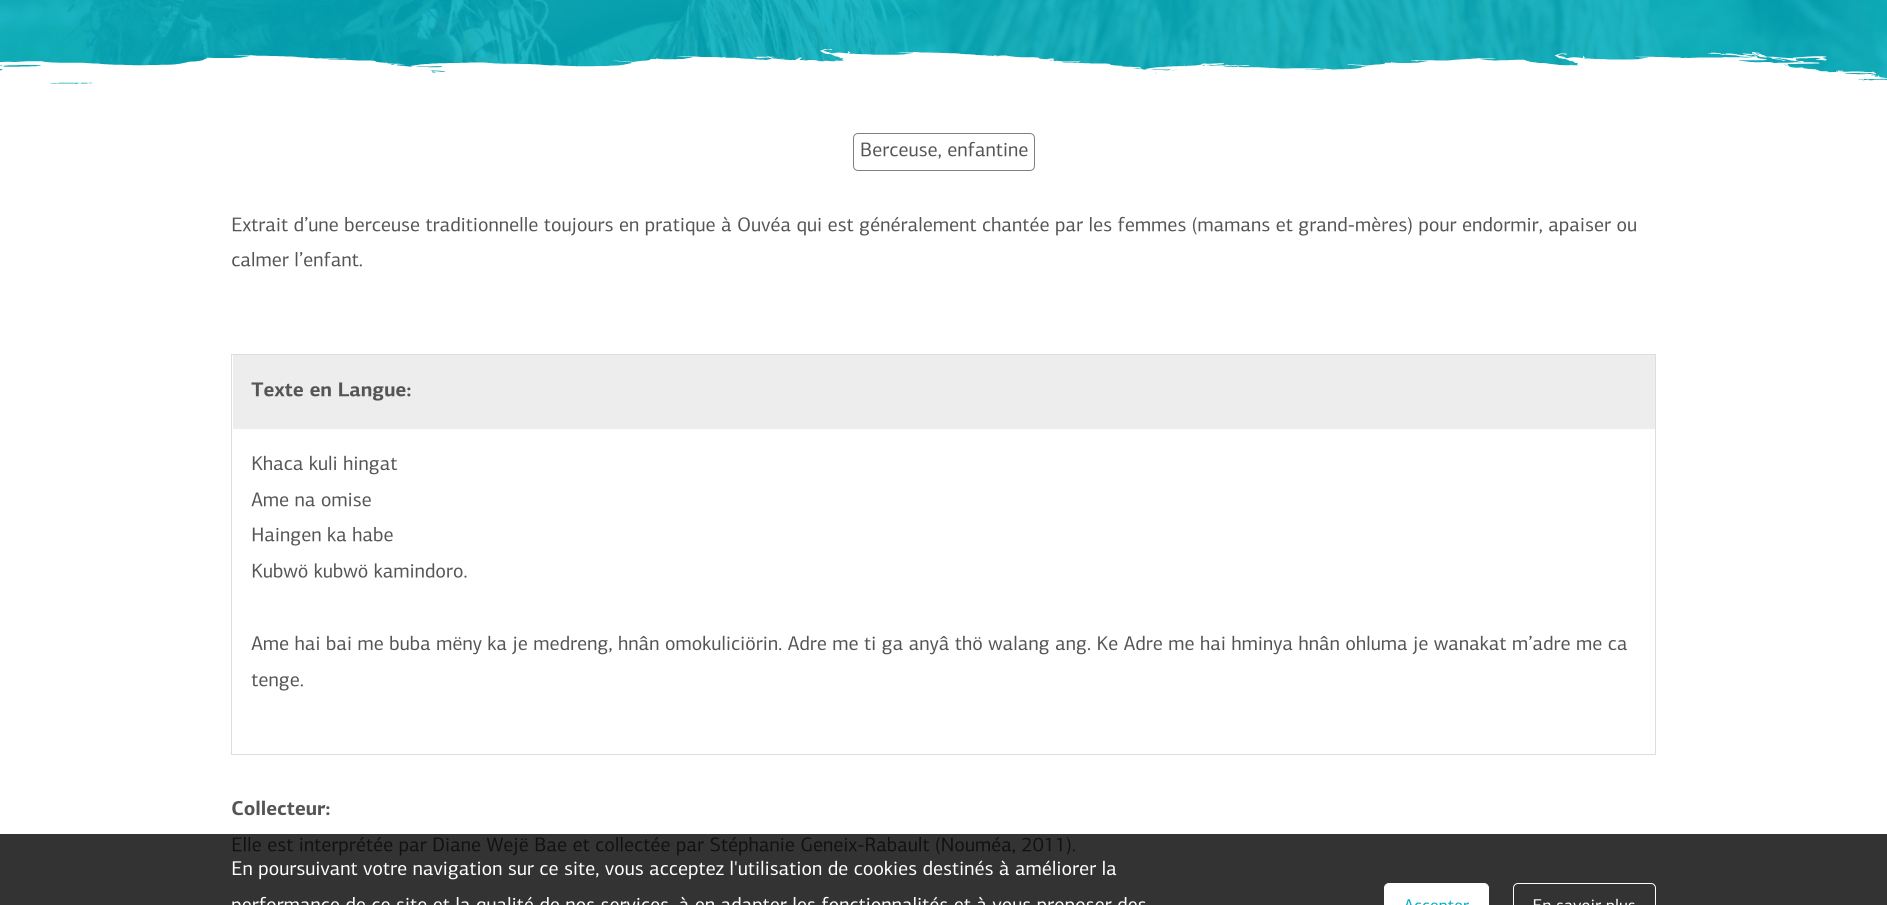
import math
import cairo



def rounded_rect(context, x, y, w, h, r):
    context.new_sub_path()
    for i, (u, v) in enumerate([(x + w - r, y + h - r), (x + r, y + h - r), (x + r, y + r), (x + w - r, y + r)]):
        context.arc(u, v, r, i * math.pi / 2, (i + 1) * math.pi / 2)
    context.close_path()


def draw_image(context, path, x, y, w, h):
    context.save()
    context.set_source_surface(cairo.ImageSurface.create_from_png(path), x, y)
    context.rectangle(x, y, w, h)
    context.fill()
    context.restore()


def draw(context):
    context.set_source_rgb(1, 1, 1)
    context.paint()
    context.set_source_rgb(51 / 255, 51 / 255, 51 / 255)
    context.rectangle(0, 834, 1887, 71)
    context.fill()
    draw_image(context, "images/1.png", 0, 0, 1887, 84)
    draw_image(context, "images/2.png", 0, 49, 1887, 46)
    rounded_rect(context, 853.5, 133.5, 181, 37, 4.5)
    context.set_source_rgb(128 / 255, 128 / 255, 128 / 255)
    context.set_line_width(1)
    context.stroke()
    draw_image(context, "images/3.png", 861, 141, 167, 18)
    draw_image(context, "images/4.png", 232, 216, 1404, 20)
    draw_image(context, "images/5.png", 232, 251, 130, 16)
    context.rectangle(231.5, 354.5, 1424, 400)
    context.set_source_rgb(221 / 255, 221 / 255, 221 / 255)
    context.stroke()
    context.set_source_rgb(237 / 255, 237 / 255, 237 / 255)
    context.rectangle(233, 355, 1422, 74)
    context.fill()
    draw_image(context, "images/6.png", 251, 382, 160, 19)
    draw_image(context, "images/7.png", 252, 455, 146, 20)
    draw_image(context, "images/8.png", 251, 492, 120, 15)
    draw_image(context, "images/9.png", 252, 527, 141, 19)
    draw_image(context, "images/10.png", 252, 563, 215, 15)
    draw_image(context, "images/11.png", 251, 635, 1376, 20)
    draw_image(context, "images/12.png", 251, 674, 52, 17)
    draw_image(context, "images/13.png", 232, 800, 98, 16)
    draw_image(context, "images/14.png", 232, 836, 843, 20)
    draw_image(context, "images/15.png", 232, 860, 885, 20)
    draw_image(context, "images/16.png", 232, 896, 914, 9)
    context.set_source_rgb(1, 1, 1)
    rounded_rect(context, 1384.5, 883.5, 104, 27, 4.5)
    context.fill_preserve()
    context.stroke()
    draw_image(context, "images/17.png", 1406, 899, 63, 6)
    rounded_rect(context, 1513.5, 883.5, 142, 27, 4.5)
    context.stroke()
    draw_image(context, "images/18.png", 1533, 898, 102, 7)


surface = cairo.ImageSurface(cairo.Format.RGB24, 1887, 905)
context = cairo.Context(surface)
options = cairo.FontOptions()
options.set_hint_metrics(cairo.HintMetrics.OFF)
options.set_hint_style(cairo.HintStyle.NONE)
context.set_font_options(options)
context.set_miter_limit(4)
draw(context)
surface.write_to_png("out.png")
